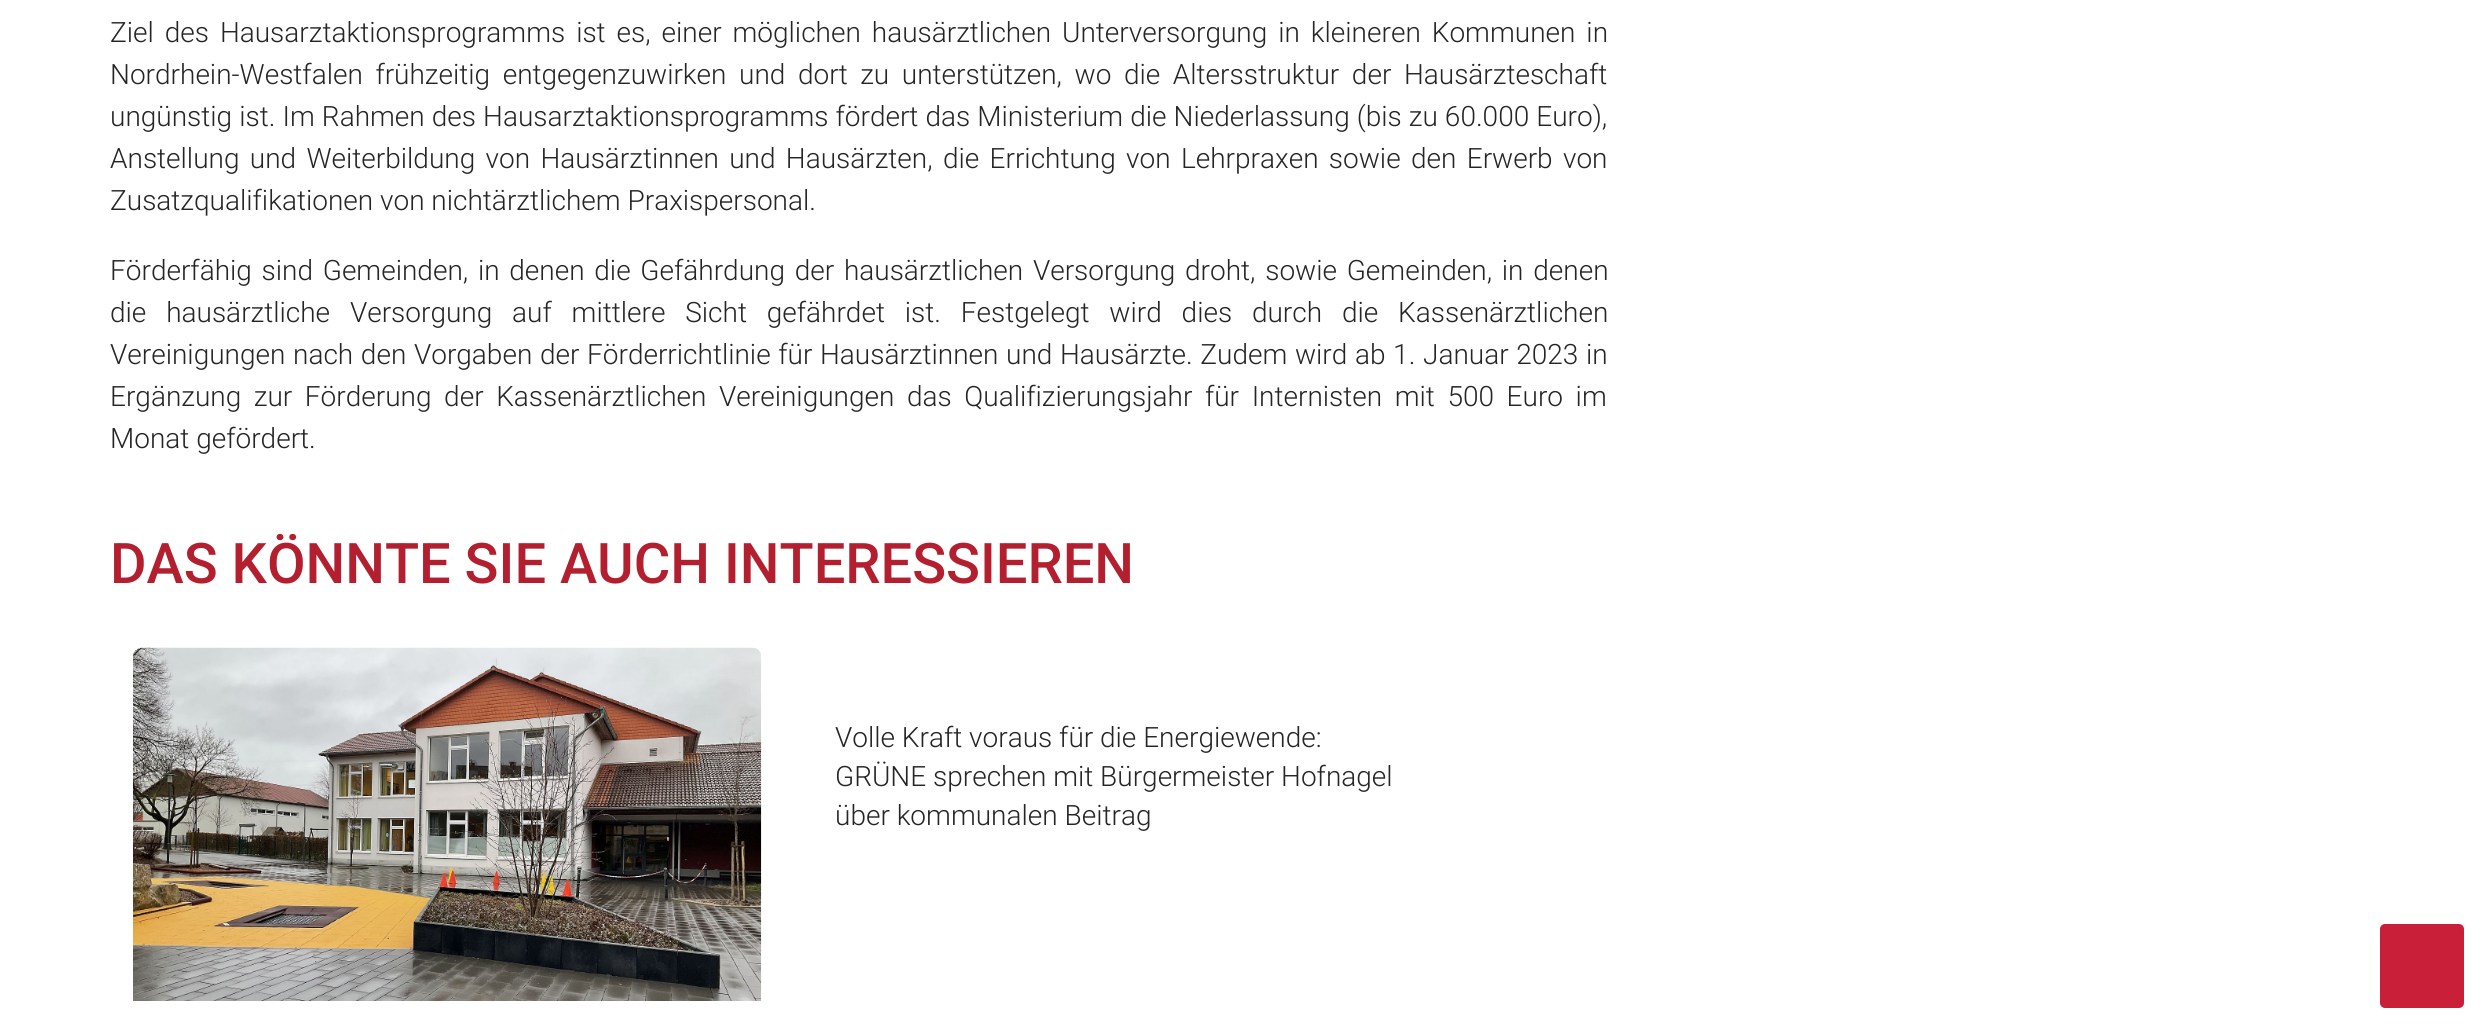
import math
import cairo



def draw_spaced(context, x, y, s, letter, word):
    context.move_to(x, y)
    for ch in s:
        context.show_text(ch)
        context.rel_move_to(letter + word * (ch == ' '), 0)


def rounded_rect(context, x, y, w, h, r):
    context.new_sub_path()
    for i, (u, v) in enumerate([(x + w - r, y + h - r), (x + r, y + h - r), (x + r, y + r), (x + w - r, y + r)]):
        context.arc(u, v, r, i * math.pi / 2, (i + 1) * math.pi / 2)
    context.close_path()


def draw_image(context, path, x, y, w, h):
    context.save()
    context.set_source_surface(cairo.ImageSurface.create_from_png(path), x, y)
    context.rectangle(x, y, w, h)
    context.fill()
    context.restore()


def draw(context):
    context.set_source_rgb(1, 1, 1)
    context.paint()
    draw_image(context, "images/1.png", 133, 647, 629, 354)
    context.set_source_rgb(202 / 255, 31 / 255, 57 / 255)
    rounded_rect(context, 2380, 924, 84, 84, 5)
    context.fill()
    context.select_font_face("Roboto Light")
    context.set_font_size(28)
    context.set_source_rgb(37 / 255, 37 / 255, 37 / 255)
    draw_spaced(context, 110, 42, "Ziel des Hausarztaktionsprogramms ist es, einer möglichen hausärztlichen Unterversorgung in kleineren Kommunen in", 0, 4.1)
    draw_spaced(context, 110, 84, "Nordrhein-Westfalen frühzeitig entgegenzuwirken und dort zu unterstützen, wo die Altersstruktur der Hausärzteschaft", 0, 5.75)
    draw_spaced(context, 110, 126, "ungünstig ist. Im Rahmen des Hausarztaktionsprogramms fördert das Ministerium die Niederlassung (bis zu 60.000 Euro),", 0, 0.25)
    draw_spaced(context, 110, 168, "Anstellung und Weiterbildung von Hausärztinnen und Hausärzten, die Errichtung von Lehrpraxen sowie den Erwerb von", 0, 3.5)
    context.move_to(110, 210)
    context.show_text("Zusatzqualifikationen von nichtärztlichem Praxispersonal.")
    draw_spaced(context, 110, 280, "Förderfähig sind Gemeinden, in denen die Gefährdung der hausärztlichen Versorgung droht, sowie Gemeinden, in denen", 0, 2.9)
    draw_spaced(context, 110, 322, "die hausärztliche Versorgung auf mittlere Sicht gefährdet ist. Festgelegt wird dies durch die Kassenärztlichen", 0, 13)
    draw_spaced(context, 110, 364, "Vereinigungen nach den Vorgaben der Förderrichtlinie für Hausärztinnen und Hausärzte. Zudem wird ab 1. Januar 2023 in", 0, 0.8)
    draw_spaced(context, 110, 406, "Ergänzung zur Förderung der Kassenärztlichen Vereinigungen das Qualifizierungsjahr für Internisten mit 500 Euro im", 0, 5.75)
    context.move_to(110, 448)
    context.show_text("Monat gefördert.")
    context.select_font_face("Roboto Medium")
    context.set_font_size(56)
    context.set_source_rgb(179 / 255, 31 / 255, 46 / 255)
    context.move_to(110, 583)
    context.show_text("DAS KÖNNTE SIE AUCH INTERESSIEREN")
    context.select_font_face("Roboto Light")
    context.set_font_size(28)
    context.set_source_rgb(37 / 255, 37 / 255, 37 / 255)
    context.move_to(835, 747)
    context.show_text("Volle Kraft voraus für die Energiewende:")
    context.move_to(835, 786)
    context.show_text("GRÜNE sprechen mit Bürgermeister Hofnagel")
    context.move_to(835, 825)
    context.show_text("über kommunalen Beitrag")


surface = cairo.ImageSurface(cairo.Format.RGB24, 2487, 1032)
context = cairo.Context(surface)
options = cairo.FontOptions()
options.set_hint_metrics(cairo.HintMetrics.OFF)
options.set_hint_style(cairo.HintStyle.NONE)
context.set_font_options(options)
context.set_miter_limit(4)
draw(context)
surface.write_to_png("out.png")
